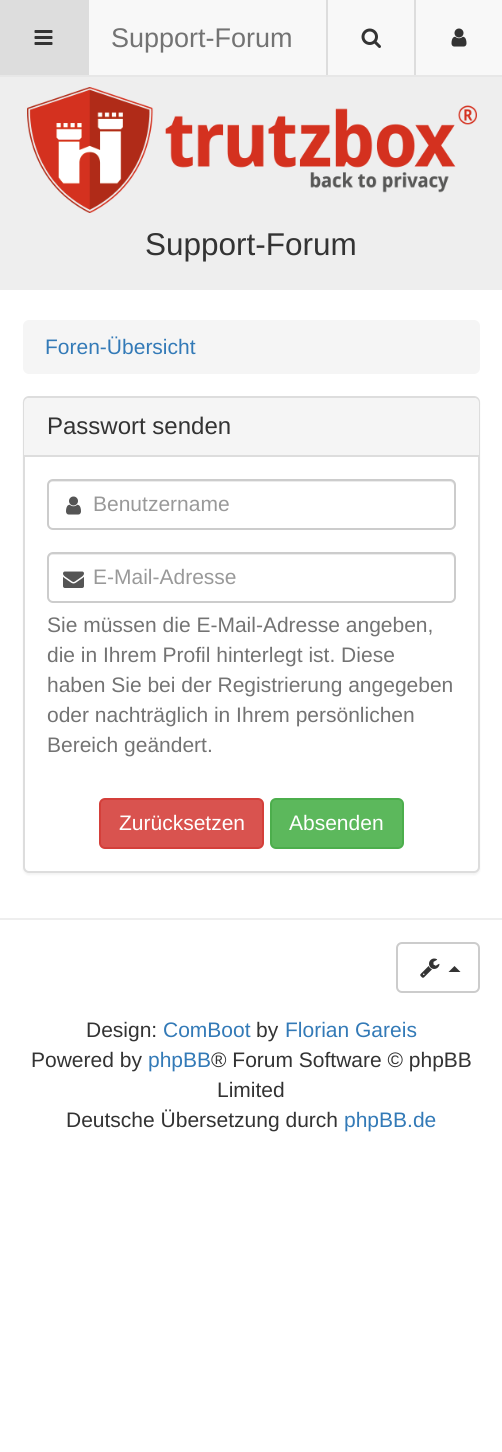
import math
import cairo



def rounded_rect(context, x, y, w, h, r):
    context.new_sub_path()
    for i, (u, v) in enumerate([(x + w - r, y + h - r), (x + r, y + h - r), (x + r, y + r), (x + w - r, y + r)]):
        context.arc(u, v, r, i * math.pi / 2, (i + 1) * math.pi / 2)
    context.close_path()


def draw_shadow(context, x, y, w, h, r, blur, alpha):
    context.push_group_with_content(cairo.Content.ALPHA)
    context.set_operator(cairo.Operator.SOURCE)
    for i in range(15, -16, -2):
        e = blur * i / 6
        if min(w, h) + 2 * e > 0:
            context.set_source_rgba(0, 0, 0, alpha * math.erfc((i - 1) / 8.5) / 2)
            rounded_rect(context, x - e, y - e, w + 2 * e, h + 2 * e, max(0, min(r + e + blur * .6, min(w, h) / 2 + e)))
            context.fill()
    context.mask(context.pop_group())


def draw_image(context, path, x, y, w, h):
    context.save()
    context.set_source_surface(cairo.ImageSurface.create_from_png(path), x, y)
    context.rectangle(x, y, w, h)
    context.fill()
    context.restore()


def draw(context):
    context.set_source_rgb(1, 1, 1)
    context.paint()
    context.set_source_rgb(248 / 255, 248 / 255, 248 / 255)
    context.rectangle(89, 0, 413, 75)
    context.fill()
    context.set_source_rgb(231 / 255, 231 / 255, 231 / 255)
    context.rectangle(0, 75, 502, 2)
    context.fill()
    context.set_source_rgb(221 / 255, 221 / 255, 221 / 255)
    context.rectangle(0, 0, 89, 75)
    context.fill()
    draw_image(context, "images/1.png", 34, 30, 19, 15)
    context.rectangle(326, 0, 2, 75)
    context.fill()
    draw_image(context, "images/2.png", 361, 28, 20, 20)
    context.rectangle(414, 0, 2, 75)
    context.fill()
    draw_image(context, "images/3.png", 451, 28, 16, 19)
    context.set_source_rgb(238 / 255, 238 / 255, 238 / 255)
    context.rectangle(0, 77, 502, 213)
    context.fill()
    draw_image(context, "images/4.png", 27, 87, 450, 126)
    context.set_source_rgb(245 / 255, 245 / 255, 245 / 255)
    rounded_rect(context, 23, 320, 457, 54, 6)
    context.fill()
    context.set_source_rgb(0, 0, 0)
    draw_shadow(context, 23, 398, 457, 477, 6, 1, 0.05)
    context.set_source_rgb(1, 1, 1)
    rounded_rect(context, 24, 397, 455, 475, 5)
    context.fill_preserve()
    context.set_source_rgb(221 / 255, 221 / 255, 221 / 255)
    context.stroke()
    context.set_source_rgb(245 / 255, 245 / 255, 245 / 255)
    context.new_path()
    context.move_to(29, 398)
    context.line_to(474, 398)
    context.curve_to(477, 398, 479, 400, 479, 403)
    context.line_to(479, 456)
    context.line_to(24, 456)
    context.line_to(24, 403)
    context.curve_to(24, 400, 26, 398, 29, 398)
    context.close_path()
    context.fill()
    context.set_source_rgb(221 / 255, 221 / 255, 221 / 255)
    context.rectangle(24, 455, 455, 2)
    context.fill()
    context.set_source_rgb(236 / 255, 236 / 255, 236 / 255)
    context.new_path()
    context.move_to(52, 482)
    context.line_to(450, 482)
    context.curve_to(452, 482, 454, 484, 454, 486)
    context.line_to(454, 526)
    context.curve_to(455, 525, 455, 524, 455, 523)
    context.line_to(455, 485)
    context.curve_to(455, 482, 453, 480, 450, 480)
    context.line_to(53, 480)
    context.curve_to(50, 480, 48, 482, 48, 485)
    context.line_to(48, 486)
    context.curve_to(48, 484, 50, 482, 52, 482)
    context.close_path()
    context.fill()
    rounded_rect(context, 48, 480, 407, 49, 5)
    context.set_source_rgb(204 / 255, 204 / 255, 204 / 255)
    context.stroke()
    draw_image(context, "images/5.png", 66, 496, 15, 19)
    context.set_source_rgb(236 / 255, 236 / 255, 236 / 255)
    context.new_path()
    context.move_to(52, 555)
    context.line_to(450, 555)
    context.curve_to(452, 555, 454, 557, 454, 560)
    context.line_to(454, 598)
    context.line_to(453, 601)
    context.curve_to(454, 600, 455, 598, 455, 597)
    context.line_to(455, 559)
    context.curve_to(455, 556, 453, 554, 450, 554)
    context.line_to(53, 554)
    context.curve_to(50, 554, 48, 556, 48, 559)
    context.line_to(48, 560)
    context.curve_to(48, 557, 50, 555, 52, 555)
    context.close_path()
    context.fill()
    rounded_rect(context, 48, 553, 407, 49, 5)
    context.set_source_rgb(204 / 255, 204 / 255, 204 / 255)
    context.stroke()
    draw_image(context, "images/6.png", 63, 571, 21, 17)
    context.set_source_rgb(217 / 255, 83 / 255, 79 / 255)
    rounded_rect(context, 100, 799, 163, 49, 5)
    context.fill_preserve()
    context.set_source_rgb(212 / 255, 63 / 255, 58 / 255)
    context.stroke()
    context.set_source_rgb(92 / 255, 184 / 255, 92 / 255)
    rounded_rect(context, 271, 799, 132, 49, 5)
    context.fill_preserve()
    context.set_source_rgb(76 / 255, 174 / 255, 76 / 255)
    context.stroke()
    context.set_source_rgb(238 / 255, 238 / 255, 238 / 255)
    context.rectangle(0, 918, 502, 2)
    context.fill()
    rounded_rect(context, 397, 943, 82, 49, 5)
    context.set_source_rgb(204 / 255, 204 / 255, 204 / 255)
    context.stroke()
    draw_image(context, "images/7.png", 420, 958, 20, 20)
    context.set_source_rgb(51 / 255, 51 / 255, 51 / 255)
    context.new_path()
    context.move_to(460.5, 972)
    context.line_to(448.5, 972)
    context.line_to(454.5, 966)
    context.close_path()
    context.fill()
    context.select_font_face("Liberation Sans")
    context.set_font_size(27)
    context.set_source_rgb(115 / 255, 115 / 255, 115 / 255)
    context.move_to(111, 47)
    context.show_text("Support-Forum")
    context.set_font_size(31.5)
    context.set_source_rgb(51 / 255, 51 / 255, 51 / 255)
    context.move_to(145, 255)
    context.show_text("Support-Forum")
    context.set_font_size(21)
    context.set_source_rgb(51 / 255, 122 / 255, 183 / 255)
    context.move_to(45, 354)
    context.show_text("Foren-Übersicht")
    context.set_font_size(24)
    context.set_source_rgb(51 / 255, 51 / 255, 51 / 255)
    context.move_to(47, 434)
    context.show_text("Passwort senden")
    context.set_font_size(21)
    context.set_source_rgb(153 / 255, 153 / 255, 153 / 255)
    context.move_to(93, 511)
    context.show_text("Benutzername")
    context.move_to(93, 584)
    context.show_text("E-Mail-Adresse")
    context.set_source_rgb(115 / 255, 115 / 255, 115 / 255)
    context.move_to(47, 632)
    context.show_text("Sie müssen die E-Mail-Adresse angeben,")
    context.move_to(47, 662)
    context.show_text("die in Ihrem Profil hinterlegt ist. Diese")
    context.move_to(47, 692)
    context.show_text("haben Sie bei der Registrierung angegeben")
    context.move_to(47, 722)
    context.show_text("oder nachträglich in Ihrem persönlichen")
    context.move_to(47, 752)
    context.show_text("Bereich geändert.")
    context.set_source_rgb(1, 1, 1)
    context.move_to(119, 830)
    context.show_text("Zurücksetzen")
    context.move_to(289, 830)
    context.show_text("Absenden")
    context.set_source_rgb(51 / 255, 51 / 255, 51 / 255)
    context.move_to(86, 1037)
    context.show_text("Design:")
    context.set_source_rgb(51 / 255, 122 / 255, 183 / 255)
    context.move_to(163, 1037)
    context.show_text("ComBoot")
    context.set_source_rgb(51 / 255, 51 / 255, 51 / 255)
    context.move_to(256, 1037)
    context.show_text("by")
    context.set_source_rgb(51 / 255, 122 / 255, 183 / 255)
    context.move_to(285, 1037)
    context.show_text("Florian Gareis")
    context.set_source_rgb(51 / 255, 51 / 255, 51 / 255)
    context.move_to(31, 1067)
    context.show_text("Powered by")
    context.set_source_rgb(51 / 255, 122 / 255, 183 / 255)
    context.move_to(148, 1067)
    context.show_text("phpBB")
    context.set_source_rgb(51 / 255, 51 / 255, 51 / 255)
    context.move_to(211, 1067)
    context.show_text("® Forum Software © phpBB")
    context.move_to(217, 1097)
    context.show_text("Limited")
    context.move_to(66, 1127)
    context.show_text("Deutsche Übersetzung durch")
    context.set_source_rgb(51 / 255, 122 / 255, 183 / 255)
    context.move_to(344, 1127)
    context.show_text("phpBB.de")


surface = cairo.ImageSurface(cairo.Format.RGB24, 502, 1452)
context = cairo.Context(surface)
options = cairo.FontOptions()
options.set_hint_metrics(cairo.HintMetrics.OFF)
options.set_hint_style(cairo.HintStyle.NONE)
context.set_font_options(options)
context.set_miter_limit(4)
draw(context)
surface.write_to_png("out.png")
